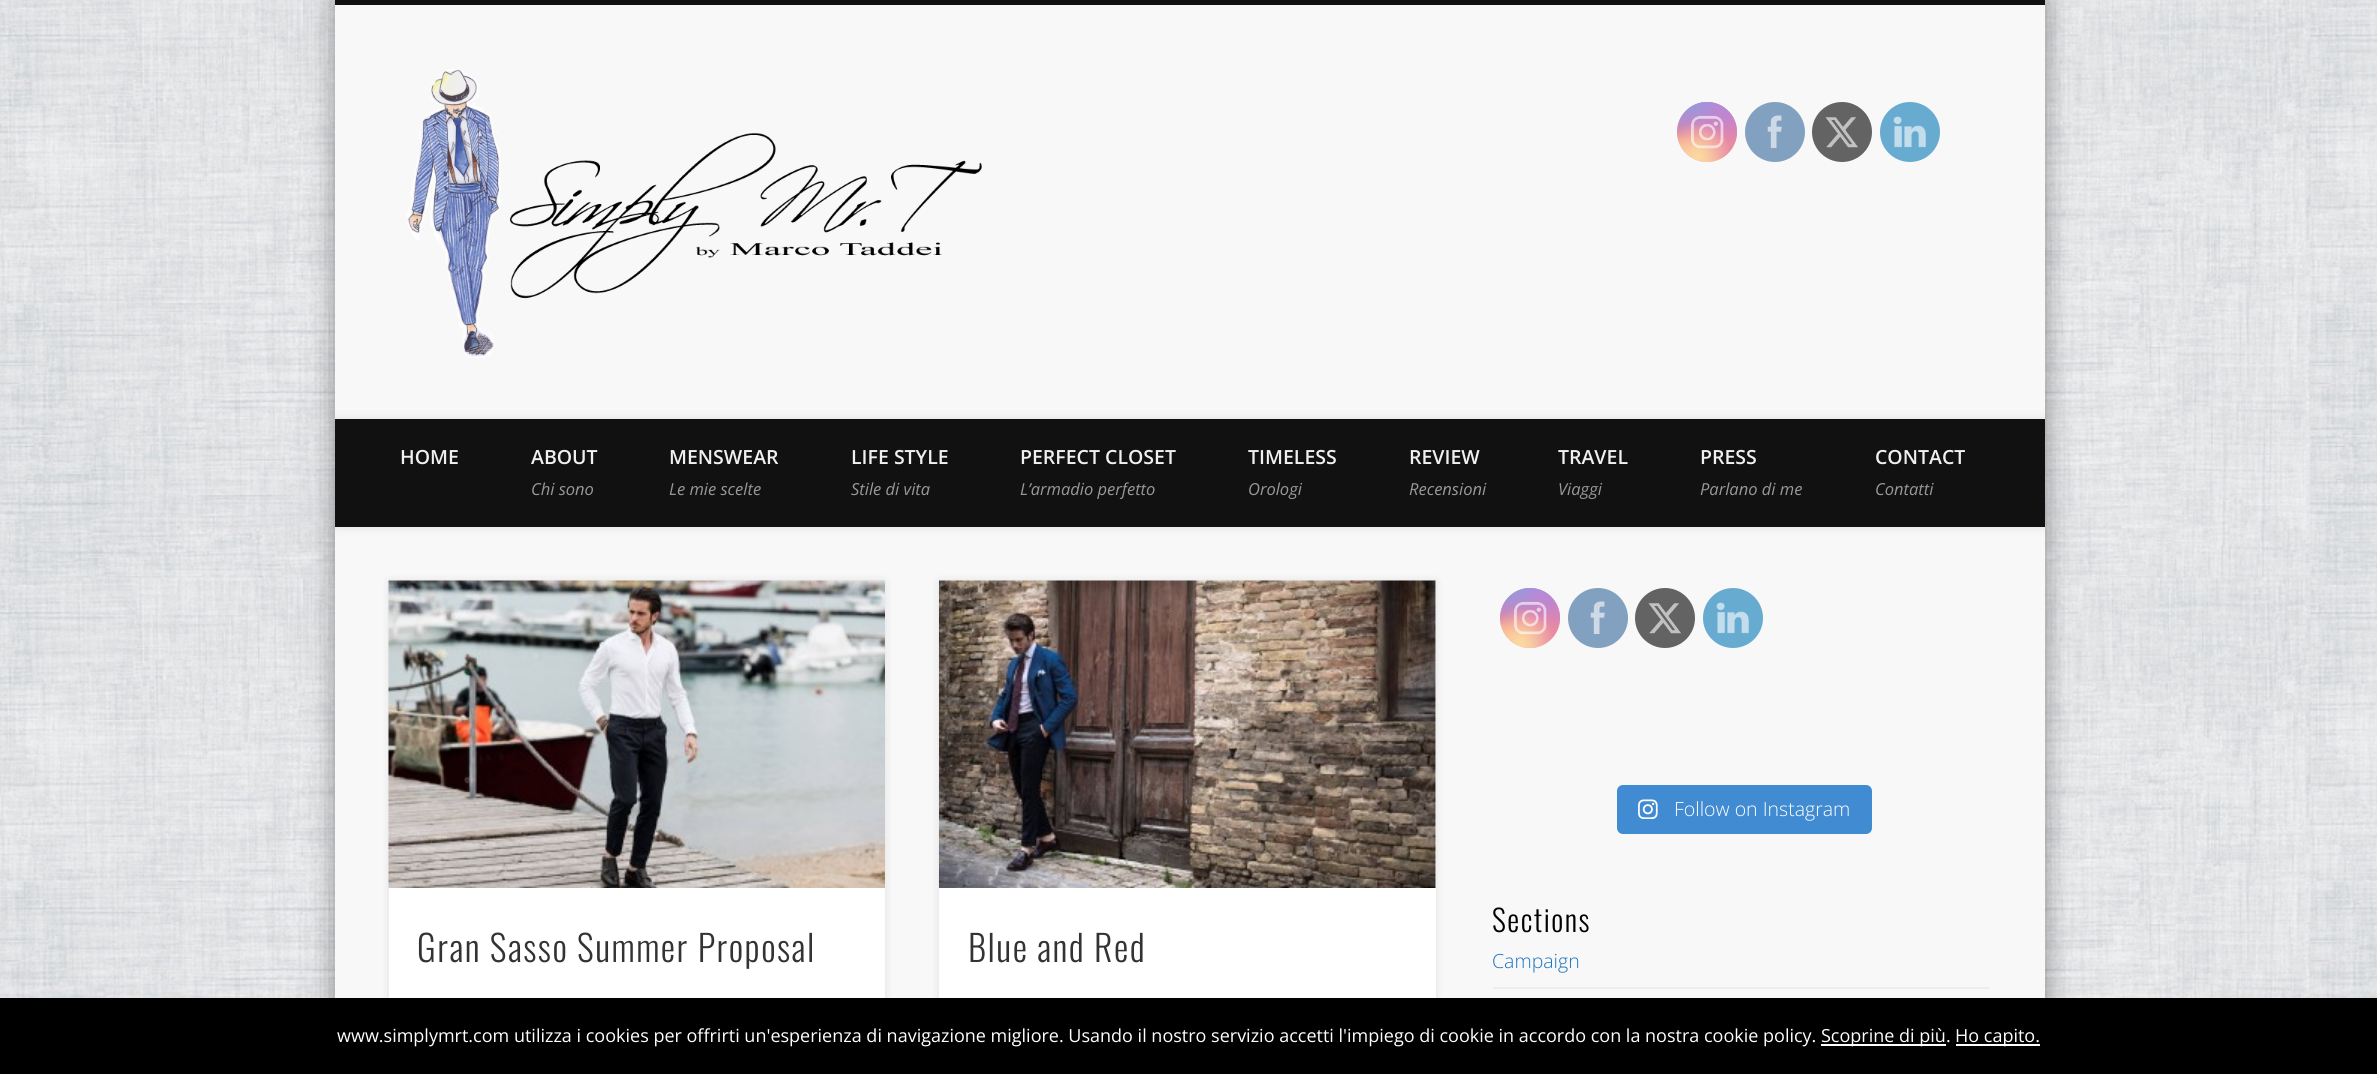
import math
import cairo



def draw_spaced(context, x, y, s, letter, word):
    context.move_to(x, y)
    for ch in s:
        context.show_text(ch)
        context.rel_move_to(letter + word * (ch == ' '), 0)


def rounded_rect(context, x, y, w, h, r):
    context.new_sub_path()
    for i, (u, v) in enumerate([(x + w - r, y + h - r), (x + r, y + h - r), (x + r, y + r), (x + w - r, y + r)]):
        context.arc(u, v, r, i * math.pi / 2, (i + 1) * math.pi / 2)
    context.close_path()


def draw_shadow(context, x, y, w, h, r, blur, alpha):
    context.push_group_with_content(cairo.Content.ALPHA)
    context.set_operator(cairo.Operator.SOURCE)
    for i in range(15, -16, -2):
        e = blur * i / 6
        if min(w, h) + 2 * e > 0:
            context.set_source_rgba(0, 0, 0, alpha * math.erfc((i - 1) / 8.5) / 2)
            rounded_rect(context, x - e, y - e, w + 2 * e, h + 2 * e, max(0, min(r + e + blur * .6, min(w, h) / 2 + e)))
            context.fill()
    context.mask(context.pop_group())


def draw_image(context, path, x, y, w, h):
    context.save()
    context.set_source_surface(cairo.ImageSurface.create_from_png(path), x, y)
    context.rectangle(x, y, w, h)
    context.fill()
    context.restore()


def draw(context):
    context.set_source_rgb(1, 1, 1)
    context.paint()
    draw_image(context, "images/1.png", 0, 0, 2377, 998)
    context.set_source_rgb(0, 0, 0)
    draw_shadow(context, 335, 0, 1710, 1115, 0, 13.5, 0.4)
    context.set_source_rgb(248 / 255, 248 / 255, 248 / 255)
    context.rectangle(335, 5, 1710, 993)
    context.fill()
    context.set_source_rgb(17 / 255, 17 / 255, 17 / 255)
    context.rectangle(335, 0, 1710, 5)
    context.fill()
    draw_image(context, "images/2.png", 407, 69, 575, 289)
    gradient = cairo.LinearGradient(1707, 102, 1707, 162)
    gradient.add_color_stop_rgba(0, 160 / 255, 153 / 255, 220 / 255, 1)
    gradient.add_color_stop_rgba(0.3, 212 / 255, 129 / 255, 185 / 255, 1)
    gradient.add_color_stop_rgba(0.5, 235 / 255, 137 / 255, 156 / 255, 1)
    gradient.add_color_stop_rgba(0.7, 247 / 255, 170 / 255, 133 / 255, 1)
    gradient.add_color_stop_rgba(1, 252 / 255, 218 / 255, 165 / 255, 1)
    context.set_source(gradient)
    context.arc(1707, 132, 30, 0, 2 * math.pi)
    context.fill()
    gradient = cairo.RadialGradient(1737, 162, 0, 1737, 162, 85)
    gradient.add_color_stop_rgba(0, 229 / 255, 129 / 255, 172 / 255, 1)
    gradient.add_color_stop_rgba(1, 229 / 255, 129 / 255, 172 / 255, 0)
    context.set_source(gradient)
    context.arc(1707, 132, 30, 0, 2 * math.pi)
    context.fill()
    gradient = cairo.RadialGradient(0, 0, 0, 0, 0, 1)
    gradient.set_matrix(cairo.Matrix(1 / 51, 0, 0, 1 / 102, -1 * 1713 / 51, -1 * 90 / 102))
    gradient.add_color_stop_rgba(0, 181 / 255, 136 / 255, 216 / 255, 1)
    gradient.add_color_stop_rgba(0.5, 181 / 255, 136 / 255, 216 / 255, 0)
    context.set_source(gradient)
    context.arc(1707, 132, 30, 0, 2 * math.pi)
    context.fill()
    gradient = cairo.RadialGradient(1737, 102, 0, 1737, 102, 85)
    gradient.add_color_stop_rgba(0, 181 / 255, 136 / 255, 216 / 255, 1)
    gradient.add_color_stop_rgba(0.5, 181 / 255, 136 / 255, 216 / 255, 0)
    context.set_source(gradient)
    context.arc(1707, 132, 30, 0, 2 * math.pi)
    context.fill()
    gradient = cairo.RadialGradient(0, 0, 0, 0, 0, 1)
    gradient.set_matrix(cairo.Matrix(1 / 68, 0, 0, 1 / 127, -1 * 1689 / 68, -1 * 72 / 127))
    gradient.add_color_stop_rgba(0, 148 / 255, 152 / 255, 223 / 255, 1)
    gradient.add_color_stop_rgba(0.5, 148 / 255, 152 / 255, 223 / 255, 0)
    context.set_source(gradient)
    context.arc(1707, 132, 30, 0, 2 * math.pi)
    context.fill()
    gradient = cairo.RadialGradient(0, 0, 0, 0, 0, 1)
    gradient.set_matrix(cairo.Matrix(1 / 85, 0, 0, 1 / 106, -1 * 1677 / 85, -1 * 87 / 106))
    gradient.add_color_stop_rgba(0, 148 / 255, 152 / 255, 223 / 255, 1)
    gradient.add_color_stop_rgba(0.5, 148 / 255, 152 / 255, 223 / 255, 0)
    context.set_source(gradient)
    context.arc(1707, 132, 30, 0, 2 * math.pi)
    context.fill()
    gradient = cairo.RadialGradient(1677, 186, 0, 1677, 186, 103)
    gradient.add_color_stop_rgba(0, 252 / 255, 217 / 255, 159 / 255, 1)
    gradient.add_color_stop_rgba(0.5, 252 / 255, 217 / 255, 159 / 255, 0)
    context.set_source(gradient)
    context.arc(1707, 132, 30, 0, 2 * math.pi)
    context.fill()
    gradient = cairo.RadialGradient(1698, 156, 0, 1698, 156, 67)
    gradient.add_color_stop_rgba(0, 252 / 255, 217 / 255, 159 / 255, 1)
    gradient.add_color_stop_rgba(0.5, 252 / 255, 217 / 255, 159 / 255, 0)
    context.set_source(gradient)
    context.arc(1707, 132, 30, 0, 2 * math.pi)
    context.fill()
    draw_image(context, "images/3.png", 1691, 115, 33, 34)
    context.set_source_rgb(130 / 255, 160 / 255, 191 / 255)
    context.arc(1775, 132, 30, 0, 2 * math.pi)
    context.fill()
    draw_image(context, "images/4.png", 1767, 115, 15, 33)
    context.set_source_rgb(99 / 255, 99 / 255, 99 / 255)
    context.arc(1842, 132, 30, 0, 2 * math.pi)
    context.fill()
    draw_image(context, "images/5.png", 1825, 117, 33, 31)
    context.set_source_rgb(104 / 255, 171 / 255, 208 / 255)
    context.arc(1910, 132, 30, 0, 2 * math.pi)
    context.fill()
    draw_image(context, "images/6.png", 1893, 116, 33, 32)
    context.save()
    context.rectangle(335, 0, 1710, 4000)
    context.clip()
    context.set_source_rgb(0, 0, 0)
    draw_shadow(context, 335, 419, 1710, 108, 0, 5, 0.1)
    context.restore()
    context.set_source_rgb(17 / 255, 17 / 255, 17 / 255)
    context.rectangle(335, 419, 1710, 108)
    context.fill()
    context.set_source_rgb(0, 0, 0)
    draw_shadow(context, 389, 581, 496, 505, 0, 4, 0.1)
    context.set_source_rgb(1, 1, 1)
    context.rectangle(389, 888, 496, 110)
    context.fill()
    draw_image(context, "images/7.png", 388, 580, 497, 308)
    context.set_source_rgb(0, 0, 0)
    draw_shadow(context, 939, 581, 497, 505, 0, 4, 0.1)
    context.set_source_rgb(1, 1, 1)
    context.rectangle(939, 581, 497, 417)
    context.fill()
    draw_image(context, "images/8.png", 939, 580, 497, 308)
    gradient = cairo.LinearGradient(1530, 588, 1530, 648)
    gradient.add_color_stop_rgba(0, 160 / 255, 153 / 255, 220 / 255, 1)
    gradient.add_color_stop_rgba(0.3, 212 / 255, 129 / 255, 185 / 255, 1)
    gradient.add_color_stop_rgba(0.5, 235 / 255, 137 / 255, 156 / 255, 1)
    gradient.add_color_stop_rgba(0.7, 247 / 255, 170 / 255, 133 / 255, 1)
    gradient.add_color_stop_rgba(1, 252 / 255, 218 / 255, 165 / 255, 1)
    context.set_source(gradient)
    context.arc(1530, 618, 30, 0, 2 * math.pi)
    context.fill()
    gradient = cairo.RadialGradient(1560, 648, 0, 1560, 648, 85)
    gradient.add_color_stop_rgba(0, 229 / 255, 129 / 255, 172 / 255, 1)
    gradient.add_color_stop_rgba(1, 229 / 255, 129 / 255, 172 / 255, 0)
    context.set_source(gradient)
    context.arc(1530, 618, 30, 0, 2 * math.pi)
    context.fill()
    gradient = cairo.RadialGradient(0, 0, 0, 0, 0, 1)
    gradient.set_matrix(cairo.Matrix(1 / 51, 0, 0, 1 / 102, -1 * 1536 / 51, -1 * 576 / 102))
    gradient.add_color_stop_rgba(0, 181 / 255, 136 / 255, 216 / 255, 1)
    gradient.add_color_stop_rgba(0.5, 181 / 255, 136 / 255, 216 / 255, 0)
    context.set_source(gradient)
    context.arc(1530, 618, 30, 0, 2 * math.pi)
    context.fill()
    gradient = cairo.RadialGradient(1560, 588, 0, 1560, 588, 85)
    gradient.add_color_stop_rgba(0, 181 / 255, 136 / 255, 216 / 255, 1)
    gradient.add_color_stop_rgba(0.5, 181 / 255, 136 / 255, 216 / 255, 0)
    context.set_source(gradient)
    context.arc(1530, 618, 30, 0, 2 * math.pi)
    context.fill()
    gradient = cairo.RadialGradient(0, 0, 0, 0, 0, 1)
    gradient.set_matrix(cairo.Matrix(1 / 68, 0, 0, 1 / 127, -1 * 1512 / 68, -1 * 558 / 127))
    gradient.add_color_stop_rgba(0, 148 / 255, 152 / 255, 223 / 255, 1)
    gradient.add_color_stop_rgba(0.5, 148 / 255, 152 / 255, 223 / 255, 0)
    context.set_source(gradient)
    context.arc(1530, 618, 30, 0, 2 * math.pi)
    context.fill()
    gradient = cairo.RadialGradient(0, 0, 0, 0, 0, 1)
    gradient.set_matrix(cairo.Matrix(1 / 85, 0, 0, 1 / 106, -1 * 1500 / 85, -1 * 573 / 106))
    gradient.add_color_stop_rgba(0, 148 / 255, 152 / 255, 223 / 255, 1)
    gradient.add_color_stop_rgba(0.5, 148 / 255, 152 / 255, 223 / 255, 0)
    context.set_source(gradient)
    context.arc(1530, 618, 30, 0, 2 * math.pi)
    context.fill()
    gradient = cairo.RadialGradient(1500, 672, 0, 1500, 672, 103)
    gradient.add_color_stop_rgba(0, 252 / 255, 217 / 255, 159 / 255, 1)
    gradient.add_color_stop_rgba(0.5, 252 / 255, 217 / 255, 159 / 255, 0)
    context.set_source(gradient)
    context.arc(1530, 618, 30, 0, 2 * math.pi)
    context.fill()
    gradient = cairo.RadialGradient(1521, 642, 0, 1521, 642, 67)
    gradient.add_color_stop_rgba(0, 252 / 255, 217 / 255, 159 / 255, 1)
    gradient.add_color_stop_rgba(0.5, 252 / 255, 217 / 255, 159 / 255, 0)
    context.set_source(gradient)
    context.arc(1530, 618, 30, 0, 2 * math.pi)
    context.fill()
    draw_image(context, "images/3.png", 1514, 601, 33, 34)
    context.set_source_rgb(130 / 255, 160 / 255, 191 / 255)
    context.arc(1598, 618, 30, 0, 2 * math.pi)
    context.fill()
    draw_image(context, "images/4.png", 1590, 601, 15, 33)
    context.set_source_rgb(99 / 255, 99 / 255, 99 / 255)
    context.arc(1665, 618, 30, 0, 2 * math.pi)
    context.fill()
    draw_image(context, "images/5.png", 1648, 603, 33, 31)
    context.set_source_rgb(104 / 255, 171 / 255, 208 / 255)
    context.arc(1733, 618, 30, 0, 2 * math.pi)
    context.fill()
    draw_image(context, "images/6.png", 1716, 602, 33, 32)
    context.set_source_rgb(64 / 255, 139 / 255, 209 / 255)
    rounded_rect(context, 1617, 785, 255, 49, 6)
    context.fill()
    draw_image(context, "images/9.png", 1638, 799, 20, 20)
    context.set_source_rgb(238 / 255, 238 / 255, 238 / 255)
    context.rectangle(1493, 987, 496, 2)
    context.fill()
    context.set_source_rgb(0, 0, 0)
    context.rectangle(0, 998, 2377, 76)
    context.fill()
    context.set_source_rgb(1, 1, 1)
    context.rectangle(1821, 1044, 125, 2)
    context.fill()
    context.rectangle(1956, 1044, 84, 2)
    context.fill()
    context.select_font_face("Open Sans SemiBold")
    context.set_font_size(19.5)
    context.set_source_rgb(240 / 255, 240 / 255, 240 / 255)
    context.move_to(400, 464)
    context.show_text("HOME")
    context.move_to(531, 464)
    context.show_text("ABOUT")
    context.select_font_face("Open Sans", cairo.FontSlant.ITALIC)
    context.set_font_size(16.5)
    context.set_source_rgb(153 / 255, 153 / 255, 153 / 255)
    context.move_to(531, 495)
    context.show_text("Chi sono")
    context.select_font_face("Open Sans SemiBold")
    context.set_font_size(19.5)
    context.set_source_rgb(240 / 255, 240 / 255, 240 / 255)
    context.move_to(669, 464)
    context.show_text("MENSWEAR")
    context.select_font_face("Open Sans", cairo.FontSlant.ITALIC)
    context.set_font_size(16.5)
    context.set_source_rgb(153 / 255, 153 / 255, 153 / 255)
    context.move_to(669, 495)
    context.show_text("Le mie scelte")
    context.select_font_face("Open Sans SemiBold")
    context.set_font_size(19.5)
    context.set_source_rgb(240 / 255, 240 / 255, 240 / 255)
    context.move_to(851, 464)
    context.show_text("LIFE STYLE")
    context.select_font_face("Open Sans", cairo.FontSlant.ITALIC)
    context.set_font_size(16.5)
    context.set_source_rgb(153 / 255, 153 / 255, 153 / 255)
    context.move_to(851, 495)
    context.show_text("Stile di vita")
    context.select_font_face("Open Sans SemiBold")
    context.set_font_size(19.5)
    context.set_source_rgb(240 / 255, 240 / 255, 240 / 255)
    context.move_to(1020, 464)
    context.show_text("PERFECT CLOSET")
    context.select_font_face("Open Sans", cairo.FontSlant.ITALIC)
    context.set_font_size(16.5)
    context.set_source_rgb(153 / 255, 153 / 255, 153 / 255)
    context.move_to(1020, 495)
    context.show_text("L’armadio perfetto")
    context.select_font_face("Open Sans SemiBold")
    context.set_font_size(19.5)
    context.set_source_rgb(240 / 255, 240 / 255, 240 / 255)
    context.move_to(1248, 464)
    context.show_text("TIMELESS")
    context.select_font_face("Open Sans", cairo.FontSlant.ITALIC)
    context.set_font_size(16.5)
    context.set_source_rgb(153 / 255, 153 / 255, 153 / 255)
    context.move_to(1248, 495)
    context.show_text("Orologi")
    context.select_font_face("Open Sans SemiBold")
    context.set_font_size(19.5)
    context.set_source_rgb(240 / 255, 240 / 255, 240 / 255)
    context.move_to(1409, 464)
    context.show_text("REVIEW")
    context.select_font_face("Open Sans", cairo.FontSlant.ITALIC)
    context.set_font_size(16.5)
    context.set_source_rgb(153 / 255, 153 / 255, 153 / 255)
    context.move_to(1409, 495)
    context.show_text("Recensioni")
    context.select_font_face("Open Sans SemiBold")
    context.set_font_size(19.5)
    context.set_source_rgb(240 / 255, 240 / 255, 240 / 255)
    context.move_to(1558, 464)
    context.show_text("TRAVEL")
    context.select_font_face("Open Sans", cairo.FontSlant.ITALIC)
    context.set_font_size(16.5)
    context.set_source_rgb(153 / 255, 153 / 255, 153 / 255)
    context.move_to(1558, 495)
    context.show_text("Viaggi")
    context.select_font_face("Open Sans SemiBold")
    context.set_font_size(19.5)
    context.set_source_rgb(240 / 255, 240 / 255, 240 / 255)
    context.move_to(1700, 464)
    context.show_text("PRESS")
    context.select_font_face("Open Sans", cairo.FontSlant.ITALIC)
    context.set_font_size(16.5)
    context.set_source_rgb(153 / 255, 153 / 255, 153 / 255)
    context.move_to(1700, 495)
    context.show_text("Parlano di me")
    context.select_font_face("Open Sans SemiBold")
    context.set_font_size(19.5)
    context.set_source_rgb(240 / 255, 240 / 255, 240 / 255)
    context.move_to(1875, 464)
    context.show_text("CONTACT")
    context.select_font_face("Open Sans", cairo.FontSlant.ITALIC)
    context.set_font_size(16.5)
    context.set_source_rgb(153 / 255, 153 / 255, 153 / 255)
    context.move_to(1875, 495)
    context.show_text("Contatti")
    context.select_font_face("Oswald Light")
    context.set_font_size(36)
    context.set_source_rgb(51 / 255, 51 / 255, 51 / 255)
    draw_spaced(context, 417, 962, "Gran Sasso Summer Proposal", 1.5, 0)
    draw_spaced(context, 968, 962, "Blue and Red", 1.5, 0)
    context.select_font_face("Open Sans Light")
    context.set_font_size(19.5)
    context.set_source_rgb(1, 1, 1)
    context.move_to(1674, 816)
    context.show_text("Follow on Instagram")
    context.select_font_face("Oswald Light")
    context.set_font_size(30)
    context.set_source_rgb(0, 0, 0)
    draw_spaced(context, 1492, 932, "Sections", 1.5, 0)
    context.select_font_face("Open Sans Light")
    context.set_font_size(19.5)
    context.set_source_rgb(30 / 255, 115 / 255, 190 / 255)
    context.move_to(1492, 968)
    context.show_text("Campaign")
    context.select_font_face("Open Sans")
    context.set_font_size(18)
    context.set_source_rgb(1, 1, 1)
    context.move_to(337, 1042)
    context.show_text("www.simplymrt.com utilizza i cookies per offrirti un'esperienza di navigazione migliore. Usando il nostro servizio accetti l'impiego di cookie in accordo con la nostra cookie policy.")
    context.move_to(1821, 1042)
    context.show_text("Scoprine di più.")
    context.move_to(1955, 1042)
    context.show_text("Ho capito.")


surface = cairo.ImageSurface(cairo.Format.RGB24, 2377, 1074)
context = cairo.Context(surface)
options = cairo.FontOptions()
options.set_hint_metrics(cairo.HintMetrics.OFF)
options.set_hint_style(cairo.HintStyle.NONE)
context.set_font_options(options)
context.set_miter_limit(4)
draw(context)
surface.write_to_png("out.png")
